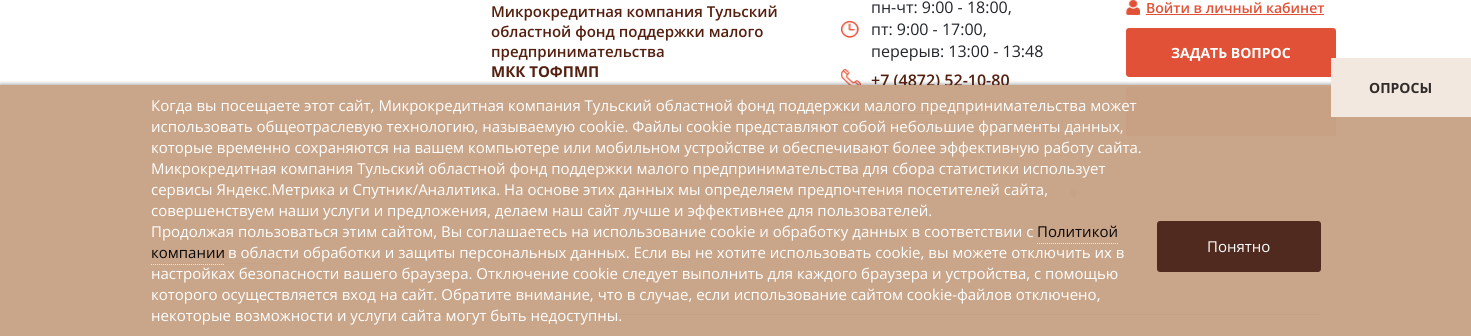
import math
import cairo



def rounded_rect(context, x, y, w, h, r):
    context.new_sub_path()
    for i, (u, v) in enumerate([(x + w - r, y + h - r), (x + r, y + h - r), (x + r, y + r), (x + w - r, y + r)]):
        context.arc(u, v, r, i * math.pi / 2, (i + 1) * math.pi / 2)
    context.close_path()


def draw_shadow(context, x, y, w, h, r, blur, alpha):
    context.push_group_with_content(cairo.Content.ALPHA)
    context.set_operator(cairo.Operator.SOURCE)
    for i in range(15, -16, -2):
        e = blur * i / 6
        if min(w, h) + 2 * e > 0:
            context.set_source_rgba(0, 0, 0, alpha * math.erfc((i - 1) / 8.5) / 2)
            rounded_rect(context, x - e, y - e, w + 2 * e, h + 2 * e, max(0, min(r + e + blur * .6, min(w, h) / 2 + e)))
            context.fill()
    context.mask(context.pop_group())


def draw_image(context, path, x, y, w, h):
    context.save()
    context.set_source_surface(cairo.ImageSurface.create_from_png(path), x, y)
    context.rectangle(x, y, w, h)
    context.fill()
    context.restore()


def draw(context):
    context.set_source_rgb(1, 1, 1)
    context.paint()
    draw_image(context, "images/1.png", 841, 21, 18, 17)
    draw_image(context, "images/2.png", 841, 69, 20, 19)
    draw_image(context, "images/3.png", 841, 100, 18, 13)
    context.set_source_rgb(81 / 255, 27 / 255, 9 / 255)
    context.rectangle(871, 113, 106, 1)
    context.fill()
    draw_image(context, "images/4.png", 1126, 0, 14, 15)
    context.set_source_rgb(225 / 255, 81 / 255, 55 / 255)
    context.rectangle(1146, 14, 178, 1)
    context.fill()
    rounded_rect(context, 1126, 28, 210, 49, 3)
    context.fill()
    rounded_rect(context, 1126, 87, 210, 49, 3)
    context.fill()
    context.set_source_rgb(241 / 255, 241 / 255, 239 / 255)
    context.rectangle(0, 161, 1471, 64)
    context.fill()
    draw_image(context, "images/5.png", 411, 188, 7, 10)
    draw_image(context, "images/5.png", 514, 188, 7, 10)
    draw_image(context, "images/5.png", 644, 188, 7, 10)
    draw_image(context, "images/5.png", 758, 188, 7, 10)
    draw_image(context, "images/5.png", 920, 188, 7, 10)
    draw_image(context, "images/5.png", 1070, 188, 7, 10)
    context.set_source_rgb(195 / 255, 146 / 255, 103 / 255)
    context.rectangle(151, 263, 55, 1)
    context.fill()
    context.rectangle(224, 263, 57, 1)
    context.fill()
    context.set_source_rgb(71 / 255, 85 / 255, 99 / 255)
    context.rectangle(151, 314, 1170, 1)
    context.fill()
    context.save()
    context.rectangle(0, 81, 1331, 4)
    context.clip()
    context.set_source_rgb(0, 0, 0)
    draw_shadow(context, 0, 85, 1471, 251, 0, 2.5, 0.48)
    context.restore()
    context.select_font_face("Open Sans SemiBold")
    context.set_font_size(15)
    context.set_source_rgb(84 / 255, 31 / 255, 14 / 255)
    context.move_to(491, 17)
    context.show_text("Микрокредитная компания Тульский")
    context.move_to(491, 37)
    context.show_text("областной фонд поддержки малого")
    context.move_to(491, 57)
    context.show_text("предпринимательства")
    context.select_font_face("Open Sans", cairo.FontSlant.NORMAL, cairo.FontWeight.BOLD)
    context.move_to(491, 77)
    context.show_text("МКК ТОФПМП")
    context.select_font_face("Open Sans")
    context.set_font_size(16)
    context.set_source_rgb(33 / 255, 37 / 255, 41 / 255)
    context.move_to(871, 13)
    context.show_text("пн-чт: 9:00 - 18:00,")
    context.move_to(871, 35)
    context.show_text("пт: 9:00 - 17:00,")
    context.move_to(871, 57)
    context.show_text("перерыв: 13:00 - 13:48")
    context.select_font_face("Open Sans SemiBold")
    context.set_source_rgb(84 / 255, 31 / 255, 14 / 255)
    context.move_to(871, 86)
    context.show_text("+7 (4872) 52-10-80")
    context.set_font_size(14)
    context.set_source_rgb(225 / 255, 81 / 255, 55 / 255)
    context.move_to(1146, 13)
    context.show_text("Войти в личный кабинет")
    context.select_font_face("Open Sans", cairo.FontSlant.NORMAL, cairo.FontWeight.BOLD)
    context.set_source_rgb(1, 1, 1)
    context.move_to(1171, 58)
    context.show_text("ЗАДАТЬ ВОПРОС")
    context.set_source_rgba(200 / 255, 163 / 255, 134 / 255, 0.97)
    context.rectangle(0, 85, 1471, 251)
    context.fill()
    context.set_source_rgb(242 / 255, 232 / 255, 223 / 255)
    context.rectangle(1331, 58, 140, 59)
    context.fill()
    context.set_source_rgb(49 / 255, 44 / 255, 42 / 255)
    context.move_to(1369, 93)
    context.show_text("ОПРОСЫ")
    context.select_font_face("Open Sans")
    context.set_font_size(15)
    context.set_source_rgb(1, 1, 1)
    context.move_to(151, 111)
    context.show_text("Когда вы посещаете этот сайт, Микрокредитная компания Тульский областной фонд поддержки малого предпринимательства может")
    context.move_to(151, 132)
    context.show_text("использовать общеотраслевую технологию, называемую cookie. Файлы cookie представляют собой небольшие фрагменты данных,")
    context.move_to(151, 153)
    context.show_text("которые временно сохраняются на вашем компьютере или мобильном устройстве и обеспечивают более эффективную работу сайта.")
    context.move_to(151, 174)
    context.show_text("Микрокредитная компания Тульский областной фонд поддержки малого предпринимательства для сбора статистики использует")
    context.move_to(151, 195)
    context.show_text("сервисы Яндекс.Метрика и Спутник/Аналитика. На основе этих данных мы определяем предпочтения посетителей сайта,")
    context.move_to(151, 216)
    context.show_text("совершенствуем наши услуги и предложения, делаем наш сайт лучше и эффективнее для пользователей.")
    context.move_to(151, 237)
    context.show_text("Продолжая пользоваться этим сайтом, Вы соглашаетесь на использование cookie и обработку данных в соответствии с")
    context.set_source_rgb(8 / 255, 8 / 255, 8 / 255)
    context.move_to(1037, 237)
    context.show_text("Политикой")
    context.new_path()
    context.move_to(1037, 243.5)
    context.line_to(1118, 243.5)
    context.set_source_rgb(242 / 255, 233 / 255, 226 / 255)
    context.set_line_width(1)
    context.set_dash([1, 1])
    context.stroke()
    context.set_source_rgb(8 / 255, 8 / 255, 8 / 255)
    context.move_to(151, 258)
    context.show_text("компании")
    context.new_path()
    context.move_to(151, 264.5)
    context.line_to(224, 264.5)
    context.set_source_rgb(242 / 255, 233 / 255, 226 / 255)
    context.stroke()
    context.set_source_rgb(1, 1, 1)
    context.move_to(228, 258)
    context.show_text("в области обработки и защиты персональных данных. Если вы не хотите использовать cookie, вы можете отключить их в")
    context.move_to(151, 279)
    context.show_text("настройках безопасности вашего браузера. Отключение cookie следует выполнить для каждого браузера и устройства, с помощью")
    context.move_to(151, 300)
    context.show_text("которого осуществляется вход на сайт. Обратите внимание, что в случае, если использование сайтом cookie-файлов отключено,")
    context.move_to(151, 321)
    context.show_text("некоторые возможности и услуги сайта могут быть недоступны.")
    context.set_source_rgb(80 / 255, 42 / 255, 30 / 255)
    rounded_rect(context, 1157, 221, 164, 51, 3)
    context.fill()
    context.set_source_rgb(1, 1, 1)
    context.move_to(1207, 252)
    context.show_text("Понятно")


surface = cairo.ImageSurface(cairo.Format.RGB24, 1471, 336)
context = cairo.Context(surface)
options = cairo.FontOptions()
options.set_hint_metrics(cairo.HintMetrics.OFF)
options.set_hint_style(cairo.HintStyle.NONE)
context.set_font_options(options)
context.set_miter_limit(4)
draw(context)
surface.write_to_png("out.png")
